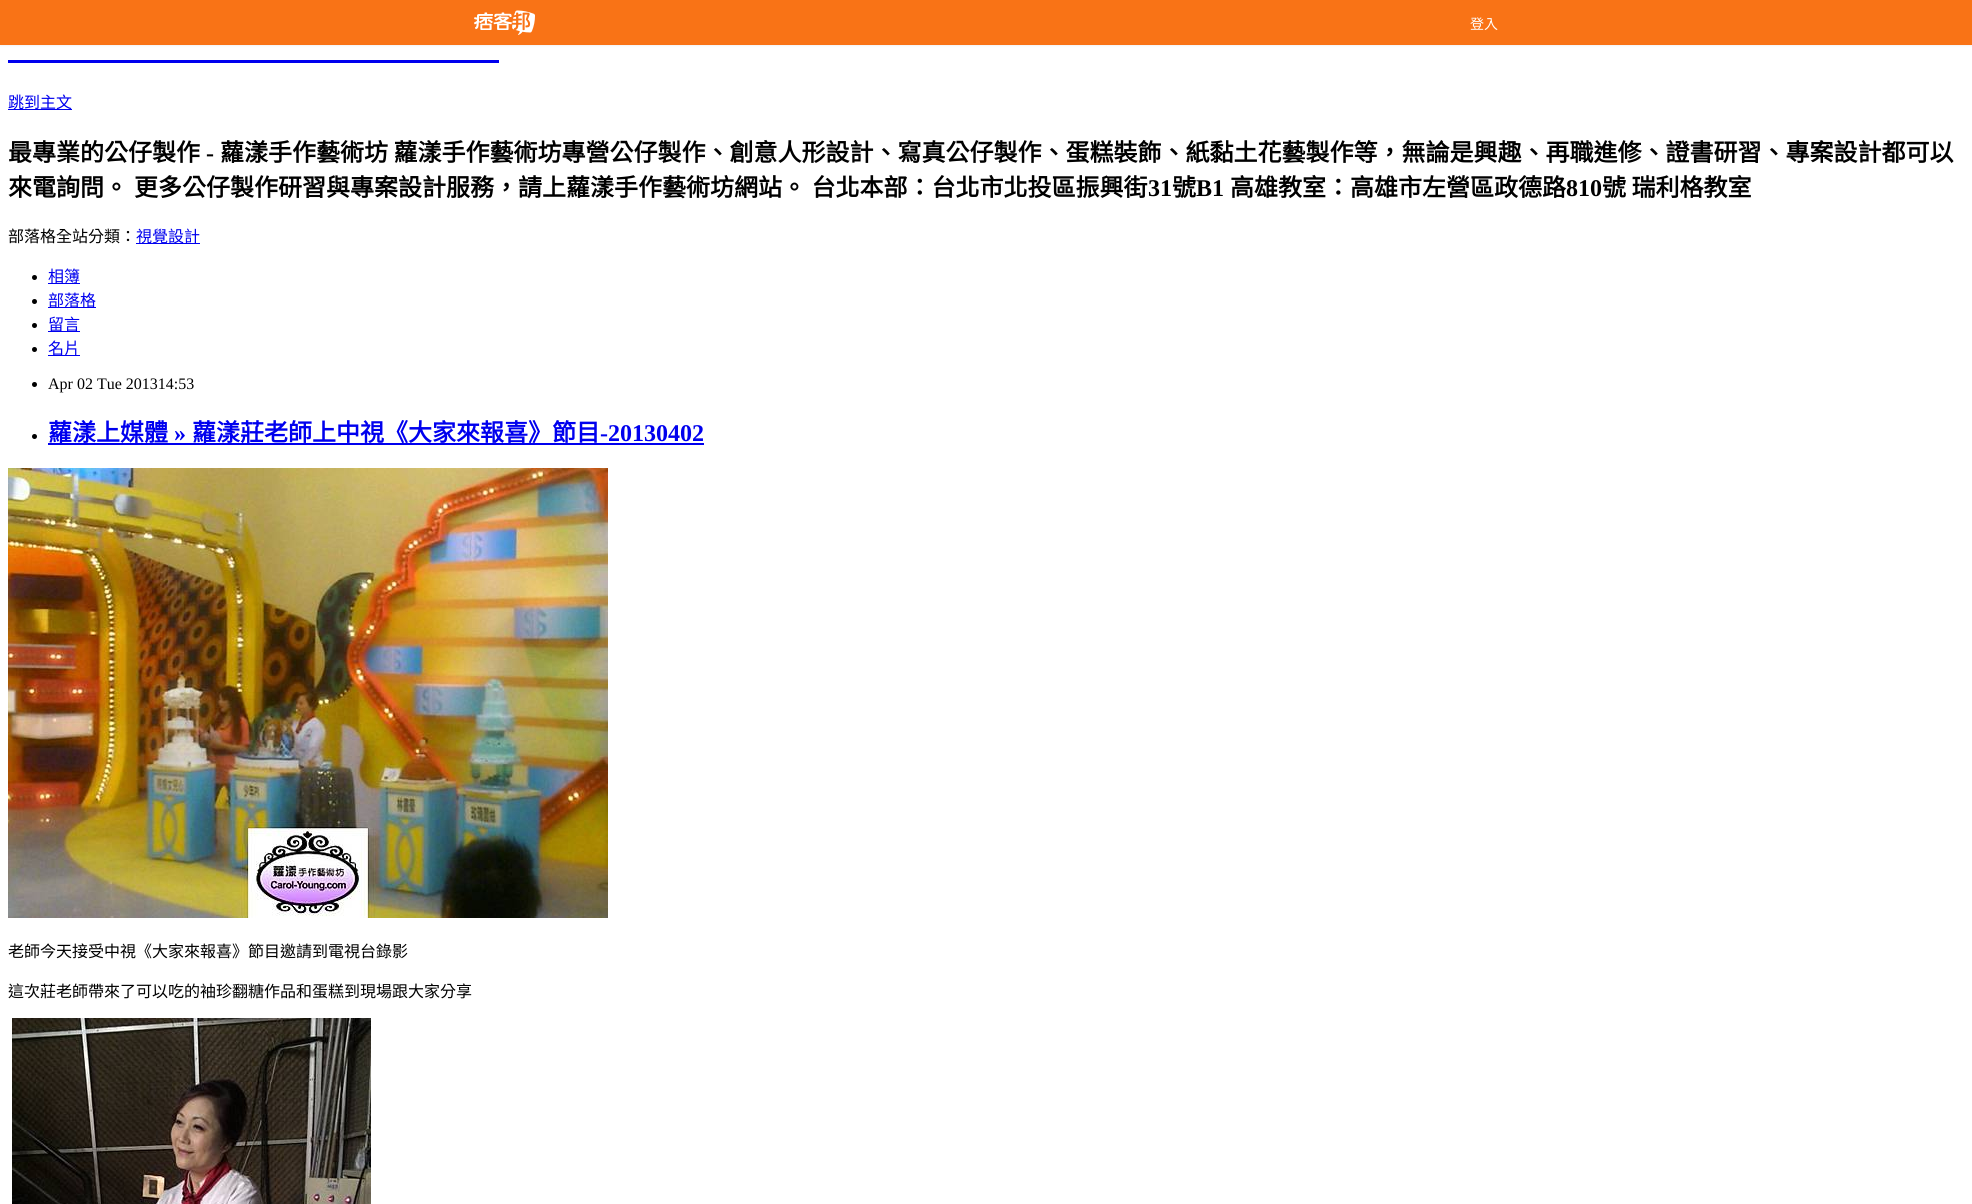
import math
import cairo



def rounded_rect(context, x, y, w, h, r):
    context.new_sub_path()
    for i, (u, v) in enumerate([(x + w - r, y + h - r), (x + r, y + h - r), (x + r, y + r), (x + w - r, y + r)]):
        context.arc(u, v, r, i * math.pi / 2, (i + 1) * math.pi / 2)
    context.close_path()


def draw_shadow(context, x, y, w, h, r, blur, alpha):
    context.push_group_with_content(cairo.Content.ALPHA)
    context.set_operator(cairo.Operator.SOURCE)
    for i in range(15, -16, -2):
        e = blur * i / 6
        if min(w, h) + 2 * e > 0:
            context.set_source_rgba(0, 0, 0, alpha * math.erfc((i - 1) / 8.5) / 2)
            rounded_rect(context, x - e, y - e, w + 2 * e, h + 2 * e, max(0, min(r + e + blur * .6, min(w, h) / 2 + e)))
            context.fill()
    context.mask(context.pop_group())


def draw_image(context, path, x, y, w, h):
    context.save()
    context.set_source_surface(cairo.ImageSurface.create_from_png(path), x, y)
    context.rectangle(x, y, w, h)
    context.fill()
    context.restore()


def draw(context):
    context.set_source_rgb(1, 1, 1)
    context.paint()
    context.set_source_rgb(0, 0, 0)
    draw_shadow(context, 0, 1, 1972, 45, 0, 1, 0.05)
    context.set_source_rgb(249 / 255, 115 / 255, 22 / 255)
    context.rectangle(0, 0, 1972, 45)
    context.fill()
    draw_image(context, "images/1.png", 474, 10, 61, 25)
    context.set_source_rgb(0, 0, 238 / 255)
    context.rectangle(8, 60, 491, 3)
    context.fill()
    context.rectangle(8, 109, 64, 1)
    context.fill()
    context.rectangle(136, 243, 64, 1)
    context.fill()
    context.set_source_rgb(0, 0, 0)
    context.arc(34.5, 277.5, 2.5, 0, 2 * math.pi)
    context.fill()
    context.set_source_rgb(0, 0, 238 / 255)
    context.rectangle(48, 283, 32, 1)
    context.fill()
    context.set_source_rgb(0, 0, 0)
    context.arc(34.5, 301.5, 2.5, 0, 2 * math.pi)
    context.fill()
    context.set_source_rgb(0, 0, 238 / 255)
    context.rectangle(48, 307, 48, 1)
    context.fill()
    context.set_source_rgb(0, 0, 0)
    context.arc(34.5, 325.5, 2.5, 0, 2 * math.pi)
    context.fill()
    context.set_source_rgb(0, 0, 238 / 255)
    context.rectangle(48, 331, 32, 1)
    context.fill()
    context.set_source_rgb(0, 0, 0)
    context.arc(34.5, 349.5, 2.5, 0, 2 * math.pi)
    context.fill()
    context.set_source_rgb(0, 0, 238 / 255)
    context.rectangle(48, 355, 32, 1)
    context.fill()
    context.set_source_rgb(0, 0, 0)
    context.arc(34.5, 384.5, 2.5, 0, 2 * math.pi)
    context.fill()
    context.arc(34.5, 436.5, 2.5, 0, 2 * math.pi)
    context.fill()
    context.set_source_rgb(0, 0, 238 / 255)
    context.rectangle(48, 443, 656, 2)
    context.fill()
    draw_image(context, "images/2.png", 8, 468, 600, 450)
    draw_image(context, "images/3.png", 12, 1018, 359, 186)
    context.select_font_face("Noto Sans CJK TC")
    context.set_font_size(14)
    context.set_source_rgb(1, 1, 1)
    context.move_to(1470, 29)
    context.show_text("登入")
    context.set_font_size(16)
    context.set_source_rgb(0, 0, 238 / 255)
    context.move_to(8, 108)
    context.show_text("跳到主文")
    context.select_font_face("Noto Sans CJK TC", cairo.FontSlant.NORMAL, cairo.FontWeight.BOLD)
    context.set_font_size(24)
    context.set_source_rgb(0, 0, 0)
    context.move_to(8, 161)
    context.show_text("最專業的公仔製作")
    context.select_font_face("Liberation Serif", cairo.FontSlant.NORMAL, cairo.FontWeight.BOLD)
    context.move_to(206, 161)
    context.show_text("-")
    context.select_font_face("Noto Sans CJK TC", cairo.FontSlant.NORMAL, cairo.FontWeight.BOLD)
    context.move_to(220, 161)
    context.show_text("蘿漾手作藝術坊 蘿漾手作藝術坊專營公仔製作、創意人形設計、寫真公仔製作、蛋糕裝飾、紙黏土花藝製作等，無論是興趣、再職進修、證書研習、專案設計都可以")
    context.move_to(8, 196)
    context.show_text("來電詢問。")
    context.move_to(134, 196)
    context.show_text("更多公仔製作研習與專案設計服務，請上蘿漾手作藝術坊網站。 台北本部：台北市北投區振興街")
    context.select_font_face("Liberation Serif", cairo.FontSlant.NORMAL, cairo.FontWeight.BOLD)
    context.move_to(1148, 196)
    context.show_text("31")
    context.select_font_face("Noto Sans CJK TC", cairo.FontSlant.NORMAL, cairo.FontWeight.BOLD)
    context.move_to(1172, 196)
    context.show_text("號")
    context.select_font_face("Liberation Serif", cairo.FontSlant.NORMAL, cairo.FontWeight.BOLD)
    context.move_to(1196, 196)
    context.show_text("B1")
    context.select_font_face("Noto Sans CJK TC", cairo.FontSlant.NORMAL, cairo.FontWeight.BOLD)
    context.move_to(1230, 196)
    context.show_text("高雄教室：高雄市左營區政德路")
    context.select_font_face("Liberation Serif", cairo.FontSlant.NORMAL, cairo.FontWeight.BOLD)
    context.move_to(1566, 196)
    context.show_text("810")
    context.select_font_face("Noto Sans CJK TC", cairo.FontSlant.NORMAL, cairo.FontWeight.BOLD)
    context.move_to(1602, 196)
    context.show_text("號 瑞利格教室")
    context.select_font_face("Noto Sans CJK TC")
    context.set_font_size(16)
    context.move_to(8, 242)
    context.show_text("部落格全站分類：")
    context.set_source_rgb(0, 0, 238 / 255)
    context.move_to(136, 242)
    context.show_text("視覺設計")
    context.move_to(48, 282)
    context.show_text("相簿")
    context.move_to(48, 306)
    context.show_text("部落格")
    context.move_to(48, 330)
    context.show_text("留言")
    context.move_to(48, 354)
    context.show_text("名片")
    context.select_font_face("Liberation Serif")
    context.set_source_rgb(0, 0, 0)
    context.move_to(48, 389)
    context.show_text("Apr 02 Tue 201314:53")
    context.select_font_face("Noto Sans CJK TC", cairo.FontSlant.NORMAL, cairo.FontWeight.BOLD)
    context.set_font_size(24)
    context.set_source_rgb(0, 0, 238 / 255)
    context.move_to(48, 441)
    context.show_text("蘿漾上媒體")
    context.select_font_face("Liberation Serif", cairo.FontSlant.NORMAL, cairo.FontWeight.BOLD)
    context.move_to(174, 441)
    context.show_text("»")
    context.select_font_face("Noto Sans CJK TC", cairo.FontSlant.NORMAL, cairo.FontWeight.BOLD)
    context.move_to(192, 441)
    context.show_text("蘿漾莊老師上中視《大家來報喜》節目")
    context.select_font_face("Liberation Serif", cairo.FontSlant.NORMAL, cairo.FontWeight.BOLD)
    context.move_to(600, 441)
    context.show_text("-20130402")
    context.select_font_face("Noto Sans CJK TC")
    context.set_font_size(16)
    context.set_source_rgb(0, 0, 0)
    context.move_to(8, 957)
    context.show_text("老師今天接受中視《大家來報喜》節目邀請到電視台錄影")
    context.move_to(8, 997)
    context.show_text("這次莊老師帶來了可以吃的袖珍翻糖作品和蛋糕到現場跟大家分享")


surface = cairo.ImageSurface(cairo.Format.RGB24, 1972, 1204)
context = cairo.Context(surface)
options = cairo.FontOptions()
options.set_hint_metrics(cairo.HintMetrics.OFF)
options.set_hint_style(cairo.HintStyle.NONE)
context.set_font_options(options)
context.set_miter_limit(4)
draw(context)
surface.write_to_png("out.png")
